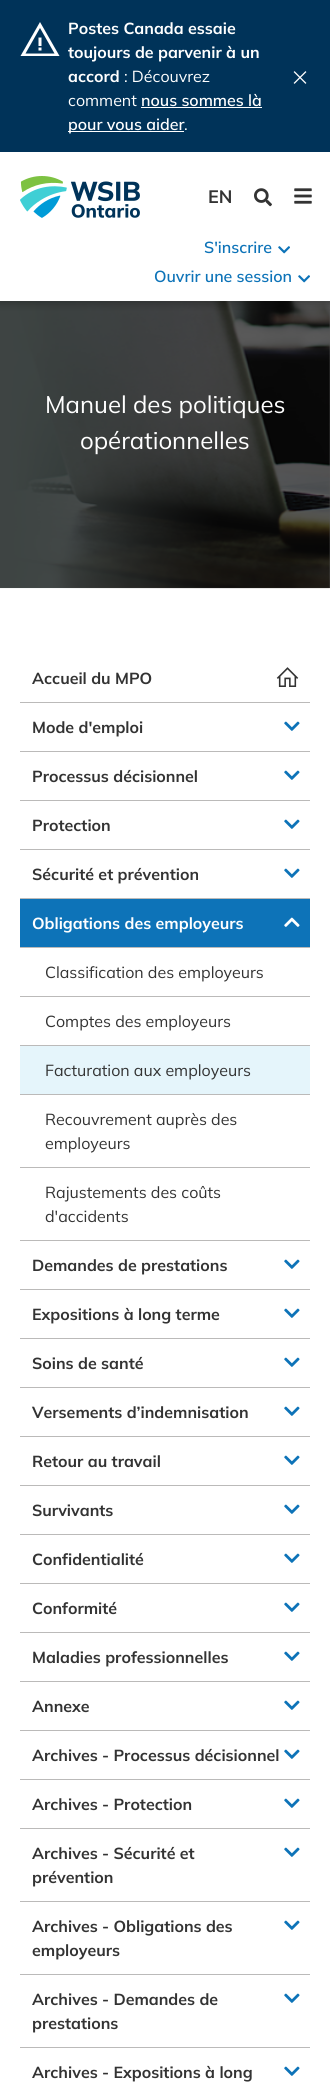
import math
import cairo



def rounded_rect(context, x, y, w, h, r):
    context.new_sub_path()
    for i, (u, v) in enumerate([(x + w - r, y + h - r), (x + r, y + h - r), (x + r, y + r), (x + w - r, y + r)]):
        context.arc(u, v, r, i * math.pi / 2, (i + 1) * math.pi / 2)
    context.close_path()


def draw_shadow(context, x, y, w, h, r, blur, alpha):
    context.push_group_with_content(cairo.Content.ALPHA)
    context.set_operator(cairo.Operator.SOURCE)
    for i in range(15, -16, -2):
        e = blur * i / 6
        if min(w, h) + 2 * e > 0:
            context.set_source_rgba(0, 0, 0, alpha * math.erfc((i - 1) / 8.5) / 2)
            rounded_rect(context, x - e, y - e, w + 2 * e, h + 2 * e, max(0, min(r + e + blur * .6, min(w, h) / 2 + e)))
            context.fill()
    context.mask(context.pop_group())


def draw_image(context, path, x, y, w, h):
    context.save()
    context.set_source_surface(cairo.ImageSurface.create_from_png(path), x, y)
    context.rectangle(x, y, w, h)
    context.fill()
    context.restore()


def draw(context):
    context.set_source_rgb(1, 1, 1)
    context.paint()
    context.set_source_rgb(89 / 255, 89 / 255, 89 / 255)
    context.rectangle(0, 301, 330, 287)
    context.fill()
    draw_image(context, "images/6.png", 0, 301, 330, 288)
    context.save()
    context.rectangle(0, 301, 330, 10)
    context.clip()
    context.set_source_rgb(0, 0, 0)
    draw_shadow(context, -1, -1, 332, 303, 0, 5.5, 0.35)
    context.restore()
    context.set_source_rgb(0, 51 / 255, 89 / 255)
    context.rectangle(0, 0, 330, 152)
    context.fill()
    context.set_source_rgb(1, 1, 1)
    context.new_path()
    context.move_to(40, 22)
    context.line_to(20.5, 56)
    context.line_to(59.5, 56)
    context.close_path()
    context.move_to(40, 28)
    context.line_to(54.5, 53.5)
    context.line_to(25.5, 53.5)
    context.close_path()
    context.move_to(38.5, 37.5)
    context.line_to(38.5, 46)
    context.line_to(41.5, 46)
    context.line_to(41.5, 37.5)
    context.close_path()
    context.move_to(38.5, 47.5)
    context.line_to(38.5, 50.5)
    context.line_to(41.5, 50.5)
    context.line_to(41.5, 47.5)
    context.close_path()
    context.fill()
    context.rectangle(141, 107, 121, 1)
    context.fill()
    context.rectangle(68, 131, 116, 1)
    context.fill()
    draw_image(context, "images/1.png", 293, 71, 14, 13)
    draw_image(context, "images/2.png", 20, 176, 120, 42)
    draw_image(context, "images/3.png", 254, 188, 18, 19)
    draw_image(context, "images/4.png", 294, 188, 18, 16)
    draw_image(context, "images/5.png", 278, 246, 12, 8)
    draw_image(context, "images/5.png", 298, 275, 12, 8)
    context.set_source_rgb(187 / 255, 186 / 255, 185 / 255)
    context.rectangle(20, 702, 290, 1)
    context.fill()
    draw_image(context, "images/7.png", 276, 667, 23, 20)
    context.rectangle(20, 751, 290, 1)
    context.fill()
    draw_image(context, "images/8.png", 284, 721, 16, 10)
    context.rectangle(20, 800, 290, 1)
    context.fill()
    draw_image(context, "images/8.png", 284, 770, 16, 10)
    context.rectangle(20, 849, 290, 1)
    context.fill()
    draw_image(context, "images/8.png", 284, 819, 16, 10)
    context.rectangle(20, 898, 290, 1)
    context.fill()
    draw_image(context, "images/8.png", 284, 868, 16, 10)
    context.set_source_rgb(13 / 255, 115 / 255, 184 / 255)
    context.rectangle(20, 899, 290, 48)
    context.fill()
    context.set_source_rgb(187 / 255, 186 / 255, 185 / 255)
    context.rectangle(20, 947, 290, 1)
    context.fill()
    draw_image(context, "images/9.png", 284, 917, 16, 10)
    context.rectangle(20, 996, 290, 1)
    context.fill()
    context.rectangle(20, 1045, 290, 1)
    context.fill()
    context.set_source_rgb(229 / 255, 245 / 255, 251 / 255)
    context.rectangle(20, 1046, 290, 48)
    context.fill()
    context.set_source_rgb(187 / 255, 186 / 255, 185 / 255)
    context.rectangle(20, 1094, 290, 1)
    context.fill()
    context.rectangle(20, 1167, 290, 1)
    context.fill()
    context.rectangle(20, 1240, 290, 1)
    context.fill()
    context.rectangle(20, 1289, 290, 1)
    context.fill()
    draw_image(context, "images/8.png", 284, 1259, 16, 10)
    context.rectangle(20, 1338, 290, 1)
    context.fill()
    draw_image(context, "images/8.png", 284, 1308, 16, 10)
    context.rectangle(20, 1387, 290, 1)
    context.fill()
    draw_image(context, "images/8.png", 284, 1357, 16, 10)
    context.rectangle(20, 1436, 290, 1)
    context.fill()
    draw_image(context, "images/8.png", 284, 1406, 16, 10)
    context.rectangle(20, 1485, 290, 1)
    context.fill()
    draw_image(context, "images/8.png", 284, 1455, 16, 10)
    context.rectangle(20, 1534, 290, 1)
    context.fill()
    draw_image(context, "images/8.png", 284, 1504, 16, 10)
    context.rectangle(20, 1583, 290, 1)
    context.fill()
    draw_image(context, "images/8.png", 284, 1553, 16, 10)
    context.rectangle(20, 1632, 290, 1)
    context.fill()
    draw_image(context, "images/8.png", 284, 1602, 16, 10)
    context.rectangle(20, 1681, 290, 1)
    context.fill()
    draw_image(context, "images/8.png", 284, 1651, 16, 10)
    context.rectangle(20, 1730, 290, 1)
    context.fill()
    draw_image(context, "images/8.png", 284, 1700, 16, 10)
    context.rectangle(20, 1779, 290, 1)
    context.fill()
    draw_image(context, "images/8.png", 284, 1749, 16, 10)
    context.rectangle(20, 1828, 290, 1)
    context.fill()
    draw_image(context, "images/8.png", 284, 1798, 16, 10)
    context.rectangle(20, 1901, 290, 1)
    context.fill()
    draw_image(context, "images/8.png", 284, 1847, 16, 10)
    context.rectangle(20, 1974, 290, 1)
    context.fill()
    draw_image(context, "images/8.png", 284, 1920, 16, 10)
    context.rectangle(20, 2047, 290, 1)
    context.fill()
    draw_image(context, "images/8.png", 284, 1993, 16, 10)
    draw_image(context, "images/8.png", 284, 2066, 16, 10)
    context.select_font_face("Mulish", cairo.FontSlant.NORMAL, cairo.FontWeight.BOLD)
    context.set_font_size(16)
    context.set_source_rgb(1, 1, 1)
    context.move_to(68, 34)
    context.show_text("Postes Canada essaie")
    context.move_to(68, 58)
    context.show_text("toujours de parvenir à un")
    context.move_to(68, 82)
    context.show_text("accord")
    context.select_font_face("Mulish")
    context.move_to(124, 82)
    context.show_text(": Découvrez")
    context.move_to(68, 106)
    context.show_text("comment")
    context.select_font_face("Mulish SemiBold")
    context.move_to(141, 106)
    context.show_text("nous sommes là")
    context.move_to(68, 130)
    context.show_text("pour vous aider")
    context.select_font_face("Mulish")
    context.move_to(184, 130)
    context.show_text(".")
    context.select_font_face("Mulish", cairo.FontSlant.NORMAL, cairo.FontWeight.BOLD)
    context.set_font_size(18)
    context.set_source_rgb(51 / 255, 51 / 255, 51 / 255)
    context.move_to(208, 203)
    context.show_text("EN")
    context.select_font_face("Mulish SemiBold")
    context.set_font_size(16)
    context.set_source_rgb(13 / 255, 115 / 255, 184 / 255)
    context.move_to(204, 253)
    context.show_text("S'inscrire")
    context.move_to(154, 282)
    context.show_text("Ouvrir une session")
    context.select_font_face("Mulish")
    context.set_font_size(24)
    context.set_source_rgb(1, 1, 1)
    context.move_to(45, 413)
    context.show_text("Manuel des politiques")
    context.move_to(80, 449)
    context.show_text("opérationnelles")
    context.select_font_face("Mulish", cairo.FontSlant.NORMAL, cairo.FontWeight.BOLD)
    context.set_font_size(16)
    context.set_source_rgb(51 / 255, 51 / 255, 51 / 255)
    context.move_to(32, 684)
    context.show_text("Accueil du MPO")
    context.move_to(32, 733)
    context.show_text("Mode d'emploi")
    context.move_to(32, 782)
    context.show_text("Processus décisionnel")
    context.move_to(32, 831)
    context.show_text("Protection")
    context.move_to(32, 880)
    context.show_text("Sécurité et prévention")
    context.set_source_rgb(1, 1, 1)
    context.move_to(32, 929)
    context.show_text("Obligations des employeurs")
    context.select_font_face("Mulish")
    context.set_source_rgb(51 / 255, 51 / 255, 51 / 255)
    context.move_to(45, 978)
    context.show_text("Classification des employeurs")
    context.move_to(45, 1027)
    context.show_text("Comptes des employeurs")
    context.move_to(45, 1076)
    context.show_text("Facturation aux employeurs")
    context.move_to(45, 1125)
    context.show_text("Recouvrement auprès des")
    context.move_to(45, 1149)
    context.show_text("employeurs")
    context.move_to(45, 1198)
    context.show_text("Rajustements des coûts")
    context.move_to(45, 1222)
    context.show_text("d'accidents")
    context.select_font_face("Mulish", cairo.FontSlant.NORMAL, cairo.FontWeight.BOLD)
    context.move_to(32, 1271)
    context.show_text("Demandes de prestations")
    context.move_to(32, 1320)
    context.show_text("Expositions à long terme")
    context.move_to(32, 1369)
    context.show_text("Soins de santé")
    context.move_to(32, 1418)
    context.show_text("Versements d’indemnisation")
    context.move_to(32, 1467)
    context.show_text("Retour au travail")
    context.move_to(32, 1516)
    context.show_text("Survivants")
    context.move_to(32, 1565)
    context.show_text("Confidentialité")
    context.move_to(32, 1614)
    context.show_text("Conformité")
    context.move_to(32, 1663)
    context.show_text("Maladies professionnelles")
    context.move_to(32, 1712)
    context.show_text("Annexe")
    context.move_to(32, 1761)
    context.show_text("Archives - Processus décisionnel")
    context.move_to(32, 1810)
    context.show_text("Archives - Protection")
    context.move_to(32, 1859)
    context.show_text("Archives - Sécurité et")
    context.move_to(32, 1883)
    context.show_text("prévention")
    context.move_to(32, 1932)
    context.show_text("Archives - Obligations des")
    context.move_to(32, 1956)
    context.show_text("employeurs")
    context.move_to(32, 2005)
    context.show_text("Archives - Demandes de")
    context.move_to(32, 2029)
    context.show_text("prestations")
    context.move_to(32, 2078)
    context.show_text("Archives - Expositions à long")


surface = cairo.ImageSurface(cairo.Format.RGB24, 330, 2090)
context = cairo.Context(surface)
options = cairo.FontOptions()
options.set_hint_metrics(cairo.HintMetrics.OFF)
options.set_hint_style(cairo.HintStyle.NONE)
context.set_font_options(options)
context.set_miter_limit(4)
draw(context)
surface.write_to_png("out.png")
